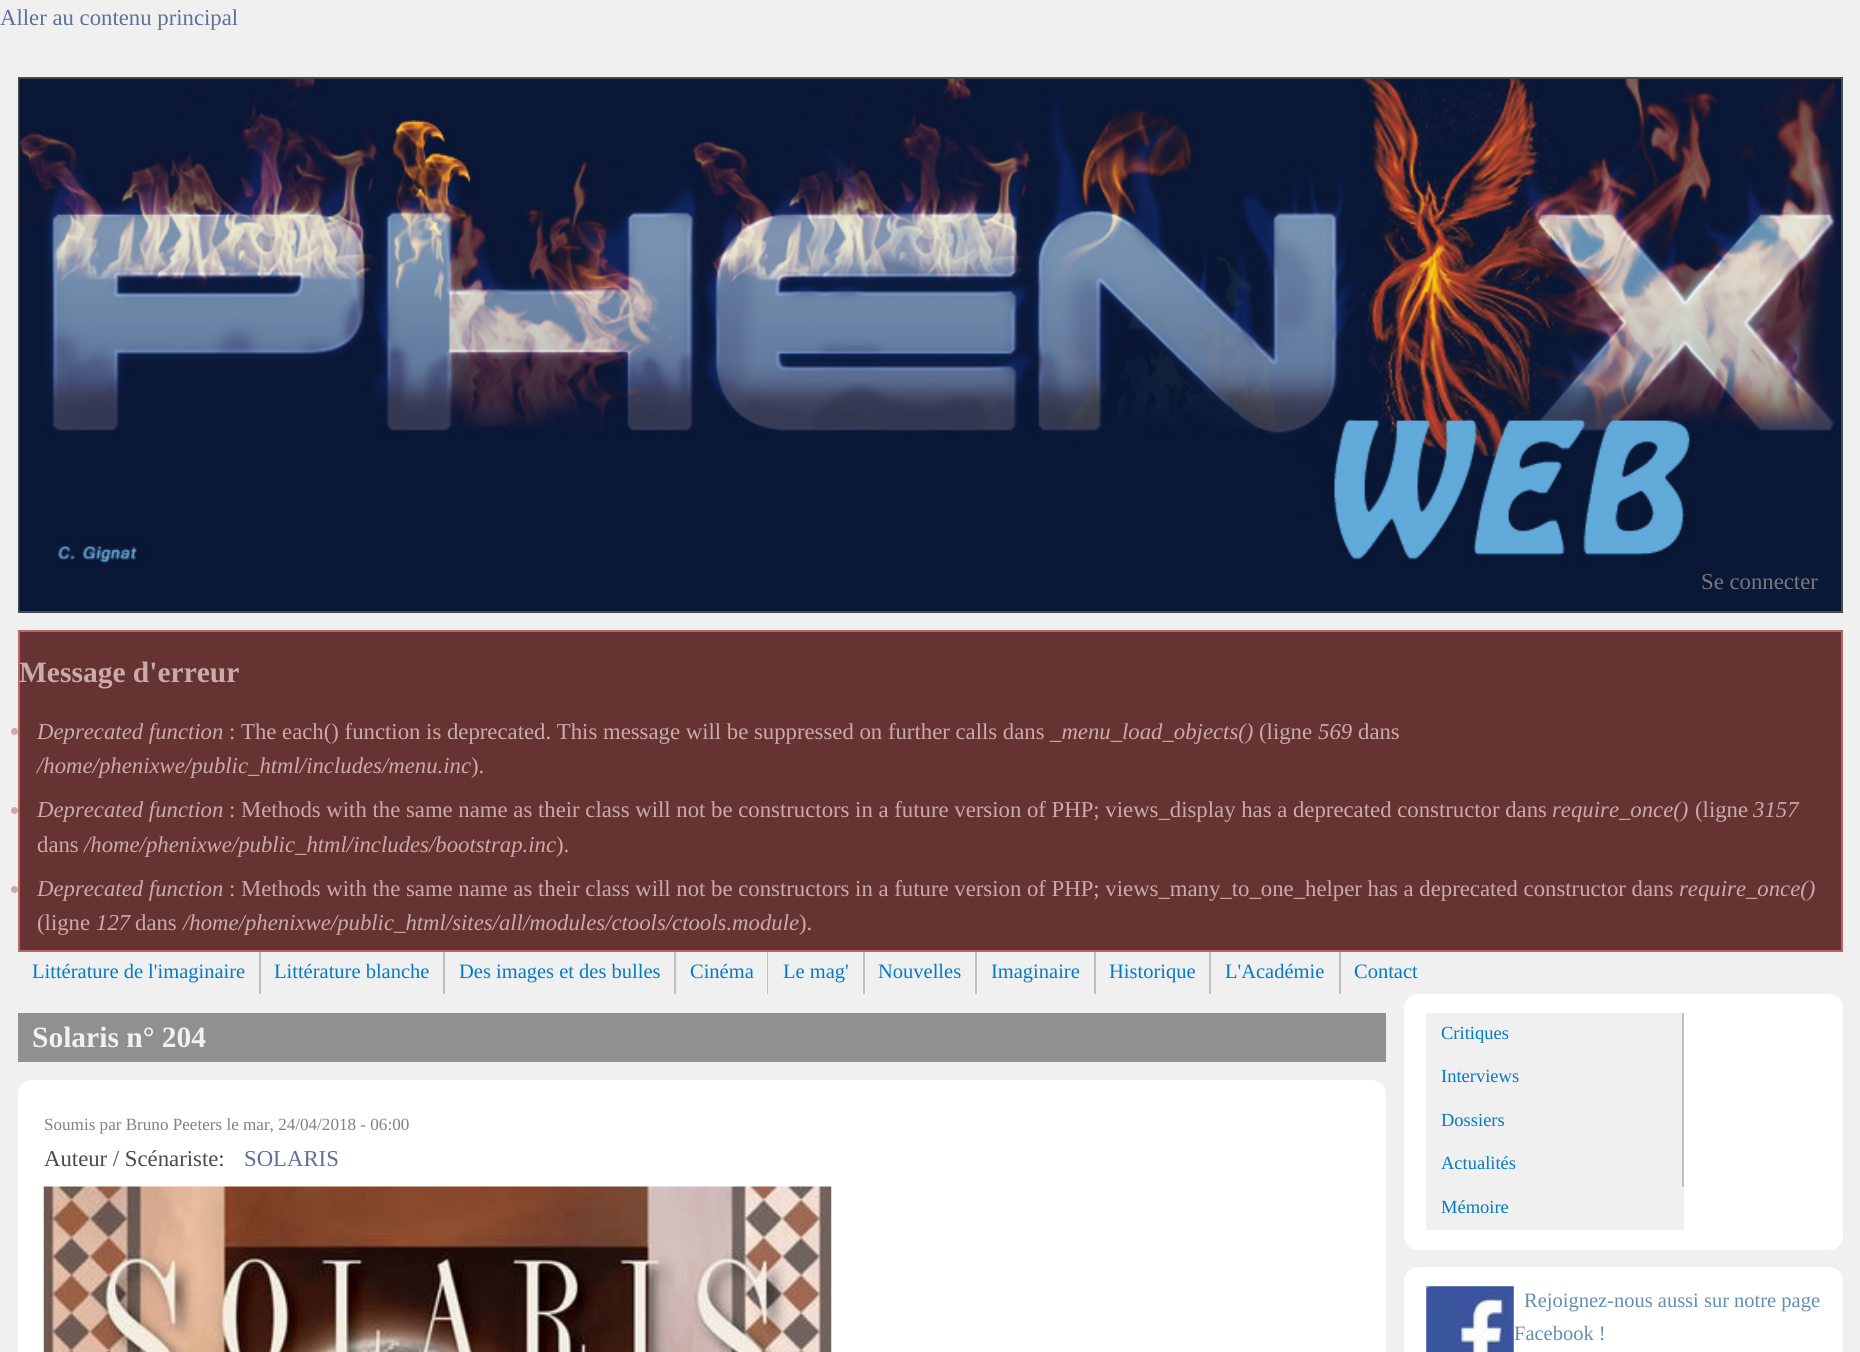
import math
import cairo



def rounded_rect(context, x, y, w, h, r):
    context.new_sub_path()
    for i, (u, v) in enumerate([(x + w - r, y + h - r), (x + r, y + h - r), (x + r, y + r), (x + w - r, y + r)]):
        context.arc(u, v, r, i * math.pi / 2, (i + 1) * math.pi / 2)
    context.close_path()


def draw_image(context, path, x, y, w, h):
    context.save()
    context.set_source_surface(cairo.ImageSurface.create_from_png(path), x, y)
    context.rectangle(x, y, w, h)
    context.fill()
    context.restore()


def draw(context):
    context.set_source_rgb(240 / 255, 240 / 255, 240 / 255)
    context.paint()
    context.set_source_rgb(10 / 255, 23 / 255, 55 / 255)
    context.rectangle(20, 610, 1821, 1)
    context.fill()
    context.rectangle(19, 78, 1823, 534)
    context.set_source_rgb(74 / 255, 74 / 255, 74 / 255)
    context.stroke()
    draw_image(context, "images/1.png", 19, 78, 1822, 533)
    context.set_source_rgb(102 / 255, 51 / 255, 51 / 255)
    context.rectangle(19, 631, 1823, 320)
    context.fill_preserve()
    context.set_source_rgb(187 / 255, 102 / 255, 102 / 255)
    context.stroke()
    context.set_source_rgb(204 / 255, 170 / 255, 170 / 255)
    context.arc(14.5, 731.5, 3.5, 0, 2 * math.pi)
    context.fill()
    context.arc(14.5, 810.5, 3.5, 0, 2 * math.pi)
    context.fill()
    context.arc(14.5, 889.5, 3.5, 0, 2 * math.pi)
    context.fill()
    context.set_source_rgb(191 / 255, 191 / 255, 191 / 255)
    context.rectangle(259, 952, 2, 42)
    context.fill()
    context.rectangle(443, 952, 2, 42)
    context.fill()
    context.rectangle(674, 952, 2, 42)
    context.fill()
    context.rectangle(767, 952, 1, 42)
    context.fill()
    context.rectangle(863, 952, 2, 42)
    context.fill()
    context.rectangle(975, 952, 2, 42)
    context.fill()
    context.rectangle(1094, 952, 2, 42)
    context.fill()
    context.rectangle(1209, 952, 2, 42)
    context.fill()
    context.rectangle(1339, 952, 2, 42)
    context.fill()
    context.set_source_rgb(144 / 255, 144 / 255, 144 / 255)
    context.rectangle(18, 1013, 1368, 49)
    context.fill()
    context.set_source_rgb(1, 1, 1)
    rounded_rect(context, 19, 1081, 1366, 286, 13)
    context.fill_preserve()
    context.stroke()
    draw_image(context, "images/2.png", 43, 1186, 789, 166)
    rounded_rect(context, 1405, 995, 437, 254, 13)
    context.fill_preserve()
    context.stroke()
    context.set_source_rgb(240 / 255, 240 / 255, 240 / 255)
    context.rectangle(1426, 1013, 256, 174)
    context.fill()
    context.set_source_rgb(191 / 255, 191 / 255, 191 / 255)
    context.rectangle(1682, 1013, 2, 174)
    context.fill()
    context.set_source_rgb(240 / 255, 240 / 255, 240 / 255)
    context.rectangle(1426, 1187, 258, 43)
    context.fill()
    context.set_source_rgb(1, 1, 1)
    rounded_rect(context, 1405, 1268, 437, 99, 13)
    context.fill_preserve()
    context.stroke()
    draw_image(context, "images/3.png", 1426, 1286, 88, 66)
    context.select_font_face("Liberation Serif")
    context.set_font_size(22.75)
    context.set_source_rgb(93 / 255, 113 / 255, 150 / 255)
    context.move_to(0, 25)
    context.show_text("Aller au contenu principal")
    context.set_source_rgb(121 / 255, 121 / 255, 121 / 255)
    context.move_to(1701, 589)
    context.show_text("Se connecter")
    context.select_font_face("Liberation Serif", cairo.FontSlant.NORMAL, cairo.FontWeight.BOLD)
    context.set_font_size(29.5)
    context.set_source_rgb(204 / 255, 170 / 255, 170 / 255)
    context.move_to(19, 682)
    context.show_text("Message d'erreur")
    context.select_font_face("Liberation Serif", cairo.FontSlant.ITALIC)
    context.set_font_size(22.75)
    context.move_to(37, 739)
    context.show_text("Deprecated function")
    context.select_font_face("Liberation Serif")
    context.move_to(229, 739)
    context.show_text(": The each() function is deprecated. This message will be suppressed on further calls dans")
    context.select_font_face("Liberation Serif", cairo.FontSlant.ITALIC)
    context.move_to(1050, 739)
    context.show_text("_menu_load_objects()")
    context.select_font_face("Liberation Serif")
    context.move_to(1259, 739)
    context.show_text("(ligne")
    context.select_font_face("Liberation Serif", cairo.FontSlant.ITALIC)
    context.move_to(1318, 739)
    context.show_text("569")
    context.select_font_face("Liberation Serif")
    context.move_to(1358, 739)
    context.show_text("dans")
    context.select_font_face("Liberation Serif", cairo.FontSlant.ITALIC)
    context.move_to(37, 773)
    context.show_text("/home/phenixwe/public_html/includes/menu.inc")
    context.select_font_face("Liberation Serif")
    context.move_to(471, 773)
    context.show_text(").")
    context.select_font_face("Liberation Serif", cairo.FontSlant.ITALIC)
    context.move_to(37, 817)
    context.show_text("Deprecated function")
    context.select_font_face("Liberation Serif")
    context.move_to(229, 817)
    context.show_text(": Methods with the same name as their class will not be constructors in a future version of PHP; views_display has a deprecated constructor dans")
    context.select_font_face("Liberation Serif", cairo.FontSlant.ITALIC)
    context.move_to(1552, 817)
    context.show_text("require_once()")
    context.select_font_face("Liberation Serif")
    context.move_to(1695, 817)
    context.show_text("(ligne")
    context.select_font_face("Liberation Serif", cairo.FontSlant.ITALIC)
    context.move_to(1753, 817)
    context.show_text("3157")
    context.select_font_face("Liberation Serif")
    context.move_to(37, 852)
    context.show_text("dans")
    context.select_font_face("Liberation Serif", cairo.FontSlant.ITALIC)
    context.move_to(84, 852)
    context.show_text("/home/phenixwe/public_html/includes/bootstrap.inc")
    context.select_font_face("Liberation Serif")
    context.move_to(556, 852)
    context.show_text(").")
    context.select_font_face("Liberation Serif", cairo.FontSlant.ITALIC)
    context.move_to(37, 896)
    context.show_text("Deprecated function")
    context.select_font_face("Liberation Serif")
    context.move_to(229, 896)
    context.show_text(": Methods with the same name as their class will not be constructors in a future version of PHP; views_many_to_one_helper has a deprecated constructor dans")
    context.select_font_face("Liberation Serif", cairo.FontSlant.ITALIC)
    context.move_to(1679, 896)
    context.show_text("require_once()")
    context.select_font_face("Liberation Serif")
    context.move_to(37, 930)
    context.show_text("(ligne")
    context.select_font_face("Liberation Serif", cairo.FontSlant.ITALIC)
    context.move_to(96, 930)
    context.show_text("127")
    context.select_font_face("Liberation Serif")
    context.move_to(135, 930)
    context.show_text("dans")
    context.select_font_face("Liberation Serif", cairo.FontSlant.ITALIC)
    context.move_to(183, 930)
    context.show_text("/home/phenixwe/public_html/sites/all/modules/ctools/ctools.module")
    context.select_font_face("Liberation Serif")
    context.move_to(799, 930)
    context.show_text(").")
    context.set_font_size(20.5)
    context.set_source_rgb(2 / 255, 122 / 255, 198 / 255)
    context.move_to(32, 978)
    context.show_text("Littérature de l'imaginaire")
    context.move_to(274, 978)
    context.show_text("Littérature blanche")
    context.move_to(459, 978)
    context.show_text("Des images et des bulles")
    context.move_to(690, 978)
    context.show_text("Cinéma")
    context.move_to(783, 978)
    context.show_text("Le mag'")
    context.move_to(878, 978)
    context.show_text("Nouvelles")
    context.move_to(991, 978)
    context.show_text("Imaginaire")
    context.move_to(1109, 978)
    context.show_text("Historique")
    context.move_to(1225, 978)
    context.show_text("L'Académie")
    context.move_to(1354, 978)
    context.show_text("Contact")
    context.select_font_face("Liberation Serif", cairo.FontSlant.NORMAL, cairo.FontWeight.BOLD)
    context.set_font_size(29.5)
    context.set_source_rgb(241 / 255, 241 / 255, 241 / 255)
    context.move_to(32, 1047)
    context.show_text("Solaris n° 204")
    context.select_font_face("Liberation Serif")
    context.set_font_size(17.1)
    context.set_source_rgb(129 / 255, 129 / 255, 129 / 255)
    context.move_to(44, 1130)
    context.show_text("Soumis par Bruno Peeters le mar, 24/04/2018 - 06:00")
    context.set_font_size(22.75)
    context.set_source_rgb(74 / 255, 74 / 255, 74 / 255)
    context.move_to(44, 1166)
    context.show_text("Auteur / Scénariste:")
    context.set_source_rgb(93 / 255, 113 / 255, 150 / 255)
    context.move_to(244, 1166)
    context.show_text("SOLARIS")
    context.set_font_size(18.5)
    context.set_source_rgb(2 / 255, 122 / 255, 198 / 255)
    context.move_to(1441, 1039)
    context.show_text("Critiques")
    context.move_to(1441, 1082)
    context.show_text("Interviews")
    context.move_to(1441, 1126)
    context.show_text("Dossiers")
    context.move_to(1441, 1169)
    context.show_text("Actualités")
    context.move_to(1441, 1213)
    context.show_text("Mémoire")
    context.set_font_size(20.5)
    context.set_source_rgb(98 / 255, 142 / 255, 177 / 255)
    context.move_to(1524, 1307)
    context.show_text("Rejoignez-nous aussi sur notre page")
    context.move_to(1514, 1340)
    context.show_text("Facebook !")


surface = cairo.ImageSurface(cairo.Format.RGB24, 1860, 1352)
context = cairo.Context(surface)
options = cairo.FontOptions()
options.set_hint_metrics(cairo.HintMetrics.OFF)
options.set_hint_style(cairo.HintStyle.NONE)
context.set_font_options(options)
context.set_miter_limit(4)
draw(context)
surface.write_to_png("out.png")
